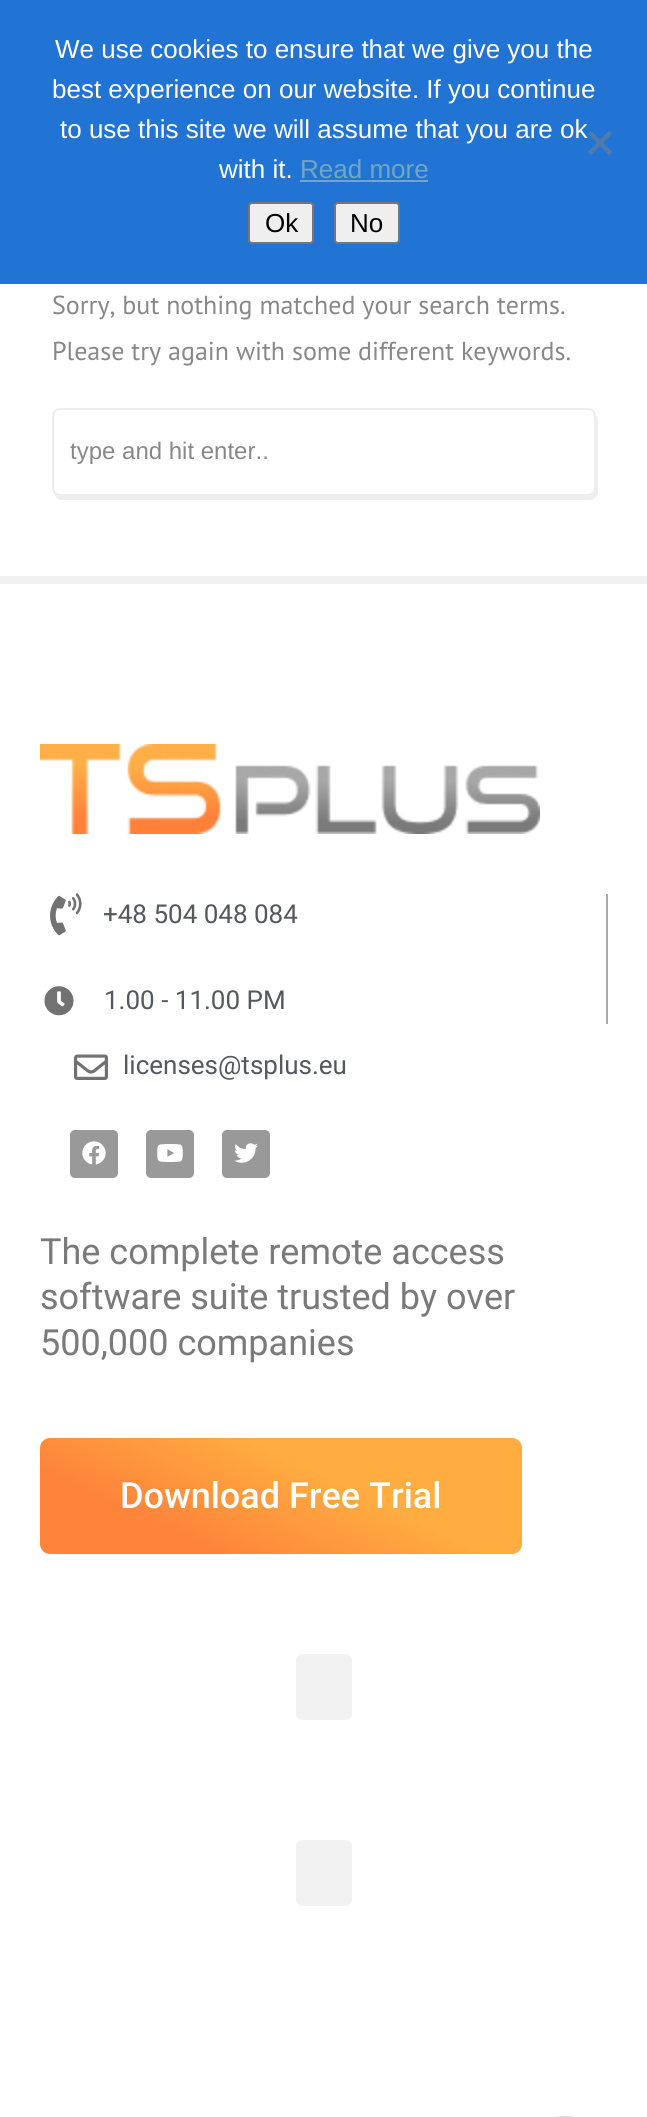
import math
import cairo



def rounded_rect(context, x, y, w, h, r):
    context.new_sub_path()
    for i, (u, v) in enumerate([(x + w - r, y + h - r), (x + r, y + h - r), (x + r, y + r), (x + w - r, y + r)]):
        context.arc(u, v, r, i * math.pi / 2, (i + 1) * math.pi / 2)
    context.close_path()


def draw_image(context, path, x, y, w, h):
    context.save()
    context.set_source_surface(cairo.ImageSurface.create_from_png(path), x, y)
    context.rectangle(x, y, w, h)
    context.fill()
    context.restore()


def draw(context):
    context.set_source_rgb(1, 1, 1)
    context.paint()
    context.set_source_rgb(33 / 255, 116 / 255, 211 / 255)
    context.rectangle(0, 0, 647, 284)
    context.fill()
    context.set_source_rgb(113 / 255, 166 / 255, 197 / 255)
    context.rectangle(300, 180, 128, 2)
    context.fill()
    context.set_source_rgb(81 / 255, 122 / 255, 170 / 255)
    context.new_path()
    context.move_to(609, 131)
    context.line_to(612, 134)
    context.line_to(591, 155)
    context.line_to(588, 152)
    context.close_path()
    context.fill()
    context.new_path()
    context.move_to(588, 134)
    context.line_to(591, 131)
    context.line_to(612, 152)
    context.line_to(609, 155)
    context.close_path()
    context.fill()
    context.set_source_rgb(239 / 255, 239 / 255, 239 / 255)
    rounded_rect(context, 249, 203, 64, 40, 3)
    context.fill_preserve()
    context.set_source_rgb(118 / 255, 118 / 255, 118 / 255)
    context.stroke()
    context.set_source_rgb(239 / 255, 239 / 255, 239 / 255)
    rounded_rect(context, 335, 203, 64, 40, 3)
    context.fill_preserve()
    context.set_source_rgb(118 / 255, 118 / 255, 118 / 255)
    context.stroke()
    context.set_source_rgb(238 / 255, 238 / 255, 238 / 255)
    context.new_path()
    context.move_to(54, 493)
    context.curve_to(55, 497, 58, 500, 62, 500)
    context.line_to(590, 500)
    context.curve_to(594, 500, 598, 496, 598, 492)
    context.line_to(598, 420)
    context.curve_to(598, 418, 597, 416, 596, 415)
    context.line_to(596, 488)
    context.curve_to(596, 492, 592, 496, 588, 496)
    context.line_to(60, 496)
    context.curve_to(58, 496, 56, 495, 54, 493)
    context.close_path()
    context.fill()
    context.set_source_rgb(1, 1, 1)
    rounded_rect(context, 53, 409, 542, 86, 7)
    context.fill_preserve()
    context.set_source_rgb(238 / 255, 238 / 255, 238 / 255)
    context.stroke()
    context.set_source_rgb(240 / 255, 240 / 255, 240 / 255)
    context.rectangle(0, 576, 647, 8)
    context.fill()
    draw_image(context, "images/1.png", 40, 744, 500, 90)
    context.set_source_rgb(169 / 255, 169 / 255, 169 / 255)
    context.rectangle(606, 894, 2, 130)
    context.fill()
    draw_image(context, "images/2.png", 50, 893, 32, 43)
    draw_image(context, "images/3.png", 44, 986, 30, 30)
    draw_image(context, "images/4.png", 74, 1054, 34, 26)
    context.set_source_rgb(153 / 255, 153 / 255, 153 / 255)
    rounded_rect(context, 70, 1130, 48, 48, 5)
    context.fill()
    draw_image(context, "images/5.png", 82, 1141, 24, 24)
    rounded_rect(context, 146, 1130, 48, 48, 5)
    context.fill()
    draw_image(context, "images/6.png", 157, 1144, 26, 18)
    rounded_rect(context, 222, 1130, 48, 48, 5)
    context.fill()
    draw_image(context, "images/7.png", 234, 1143, 24, 20)
    gradient = cairo.LinearGradient(212, 1638, 350, 1354)
    gradient.add_color_stop_rgba(0.25, 254 / 255, 132 / 255, 59 / 255, 1)
    gradient.add_color_stop_rgba(0.62, 1, 172 / 255, 65 / 255, 1)
    context.set_source(gradient)
    rounded_rect(context, 40, 1438, 482, 116, 10)
    context.fill()
    context.set_source_rgb(242 / 255, 242 / 255, 242 / 255)
    rounded_rect(context, 296, 1654, 56, 66, 6)
    context.fill()
    rounded_rect(context, 296, 1840, 56, 66, 6)
    context.fill()
    rounded_rect(context, 513, 2117, 104, 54, 52)
    context.set_source_rgb(219 / 255, 218 / 255, 222 / 255)
    context.stroke()
    context.select_font_face("Liberation Sans")
    context.set_font_size(26)
    context.set_source_rgb(1, 1, 1)
    context.move_to(55, 58)
    context.show_text("We use cookies to ensure that we give you the")
    context.move_to(52, 98)
    context.show_text("best experience on our website. If you continue")
    context.move_to(60, 138)
    context.show_text("to use this site we will assume that you are ok")
    context.move_to(219, 178)
    context.show_text("with it.")
    context.set_source_rgb(113 / 255, 166 / 255, 197 / 255)
    context.move_to(300, 178)
    context.show_text("Read more")
    context.set_source_rgb(0, 0, 0)
    context.move_to(265, 232)
    context.show_text("Ok")
    context.move_to(350, 232)
    context.show_text("No")
    context.select_font_face("PT Sans")
    context.set_source_rgb(136 / 255, 136 / 255, 136 / 255)
    context.move_to(52, 314)
    context.show_text("Sorry, but nothing matched your search terms.")
    context.move_to(52, 360)
    context.show_text("Please try again with some different keywords.")
    context.select_font_face("Liberation Sans")
    context.set_font_size(24)
    context.move_to(70, 459)
    context.show_text("type and hit enter..")
    context.select_font_face("Roboto")
    context.set_font_size(26)
    context.set_source_rgb(84 / 255, 89 / 255, 95 / 255)
    context.move_to(103, 923)
    context.show_text("+48 504 048 084")
    context.move_to(104, 1009)
    context.show_text("1.00 - 11.00 PM")
    context.move_to(123, 1074)
    context.show_text("licenses@tsplus.eu")
    context.set_font_size(36)
    context.set_source_rgb(122 / 255, 122 / 255, 122 / 255)
    context.move_to(40, 1264)
    context.show_text("The complete remote access")
    context.move_to(40, 1309)
    context.show_text("software suite trusted by over")
    context.move_to(40, 1355)
    context.show_text("500,000 companies")
    context.select_font_face("Roboto Medium")
    context.set_source_rgb(1, 1, 1)
    context.move_to(120, 1508)
    context.show_text("Download Free Trial")


surface = cairo.ImageSurface(cairo.Format.RGB24, 647, 2117)
context = cairo.Context(surface)
options = cairo.FontOptions()
options.set_hint_metrics(cairo.HintMetrics.OFF)
options.set_hint_style(cairo.HintStyle.NONE)
context.set_font_options(options)
context.set_miter_limit(4)
draw(context)
surface.write_to_png("out.png")
